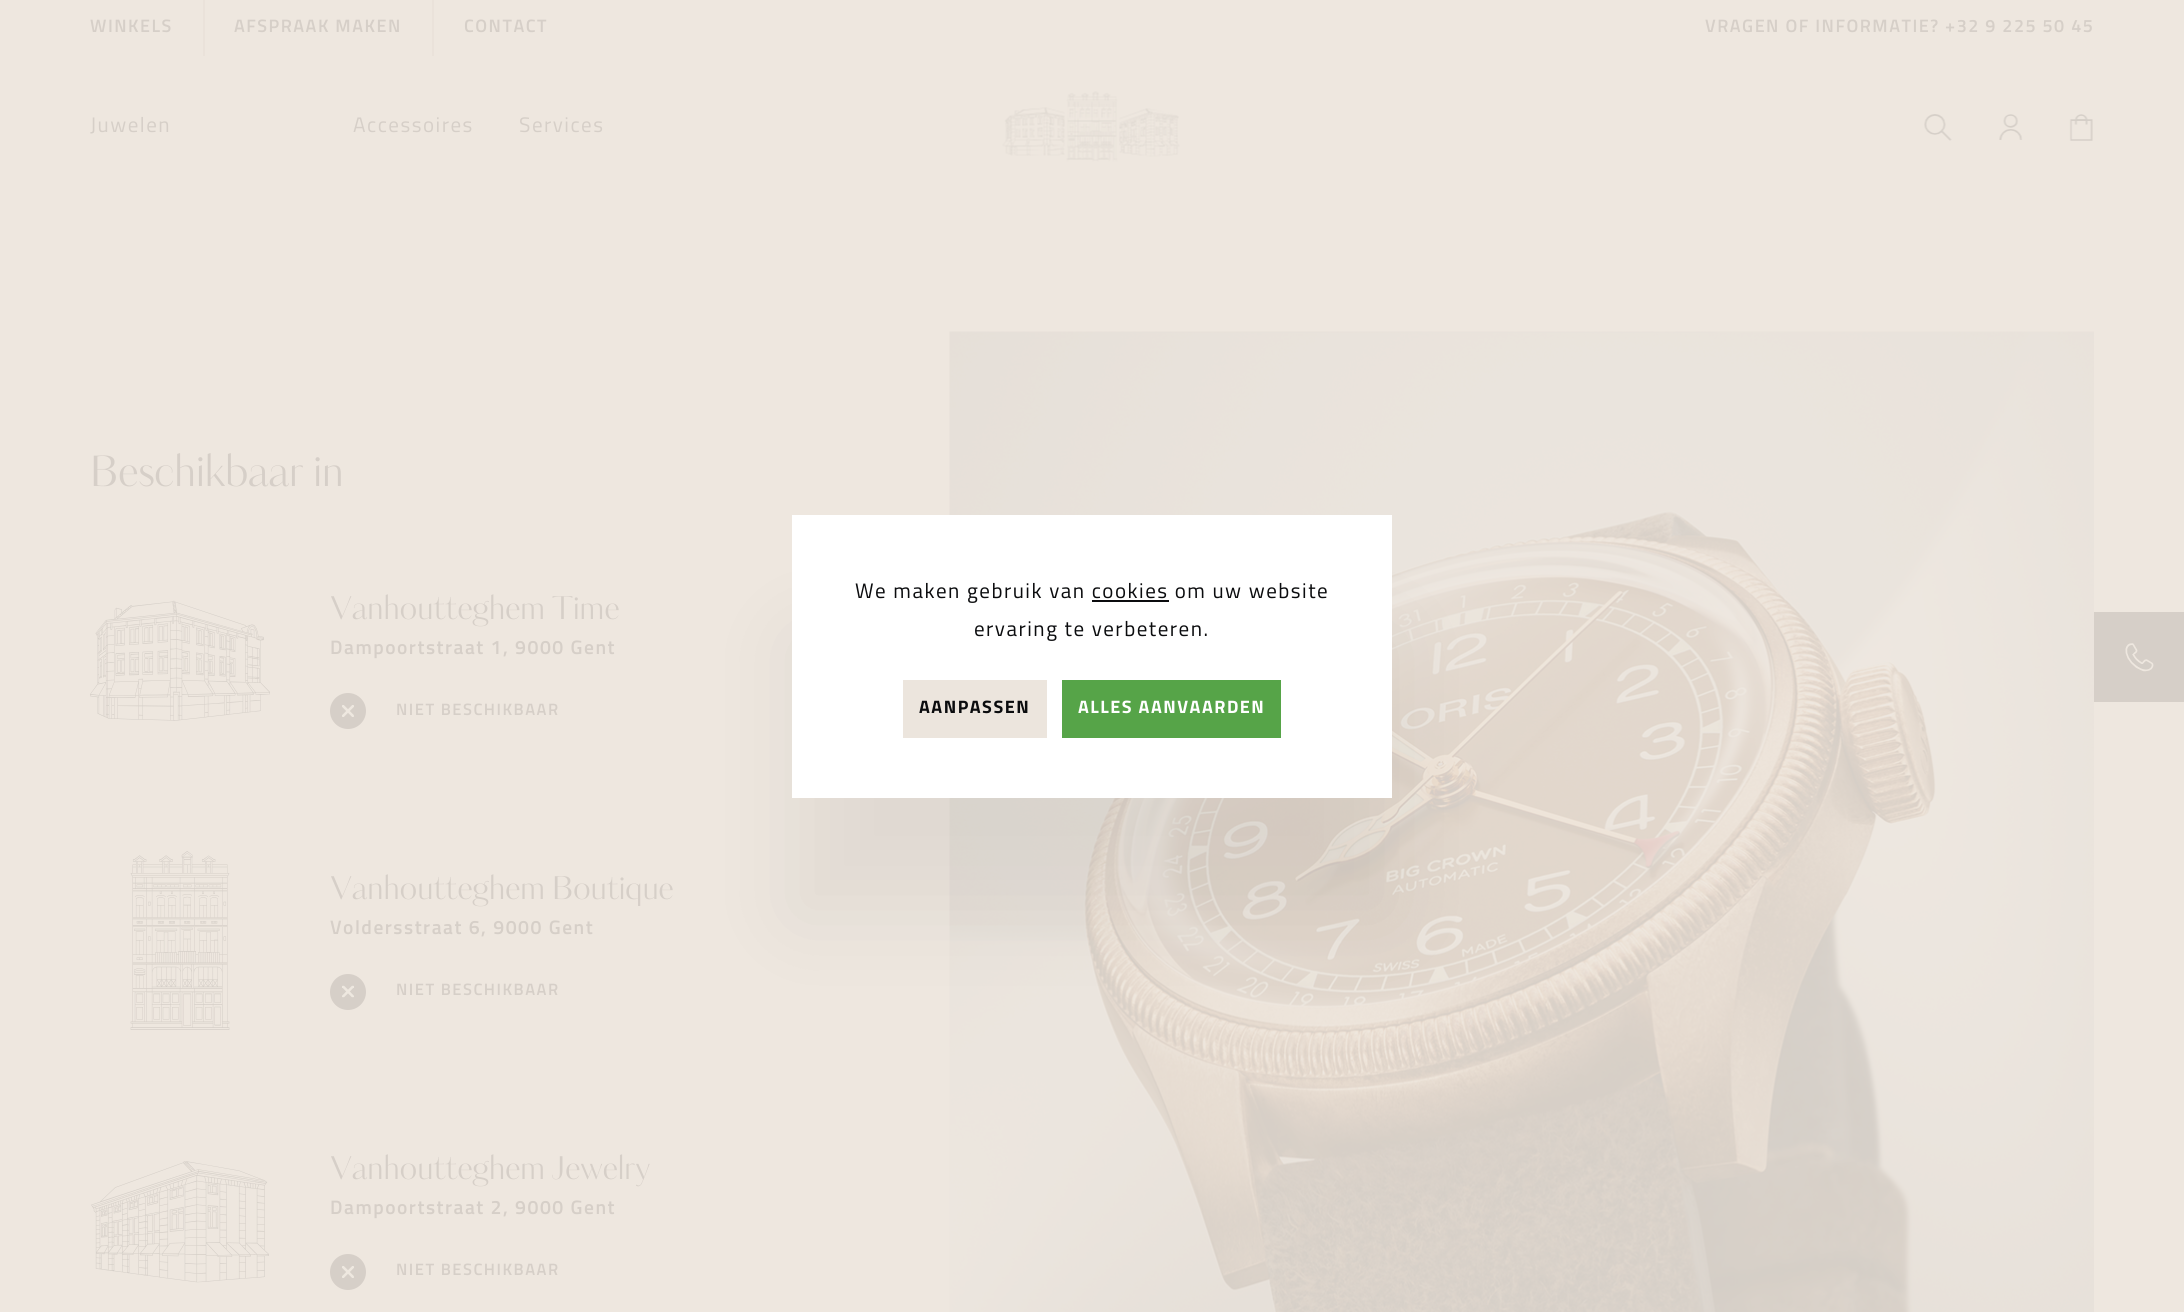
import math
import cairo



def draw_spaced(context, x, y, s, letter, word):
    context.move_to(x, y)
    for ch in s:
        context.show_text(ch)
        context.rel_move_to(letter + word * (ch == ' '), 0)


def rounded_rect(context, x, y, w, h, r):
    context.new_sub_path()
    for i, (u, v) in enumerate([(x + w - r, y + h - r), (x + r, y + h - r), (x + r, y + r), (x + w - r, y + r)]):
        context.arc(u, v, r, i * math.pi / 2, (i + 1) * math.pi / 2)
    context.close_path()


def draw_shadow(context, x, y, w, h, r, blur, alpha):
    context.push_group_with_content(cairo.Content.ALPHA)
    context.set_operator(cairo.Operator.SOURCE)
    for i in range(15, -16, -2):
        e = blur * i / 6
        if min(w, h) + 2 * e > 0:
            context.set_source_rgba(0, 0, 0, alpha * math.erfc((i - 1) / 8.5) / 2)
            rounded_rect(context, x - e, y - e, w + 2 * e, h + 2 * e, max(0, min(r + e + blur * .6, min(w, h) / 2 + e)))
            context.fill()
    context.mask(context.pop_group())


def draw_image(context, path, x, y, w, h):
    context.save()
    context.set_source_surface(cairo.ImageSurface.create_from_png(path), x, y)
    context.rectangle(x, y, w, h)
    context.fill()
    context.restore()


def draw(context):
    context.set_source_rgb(238 / 255, 231 / 255, 223 / 255)
    context.paint()
    context.set_source_rgb(234 / 255, 226 / 255, 218 / 255)
    context.rectangle(203, 0, 2, 56)
    context.fill()
    context.rectangle(432, 0, 2, 56)
    context.fill()
    draw_image(context, "images/1.png", 1002, 91, 178, 71)
    draw_image(context, "images/2.png", 1924, 114, 28, 27)
    draw_image(context, "images/3.png", 1999, 114, 24, 26)
    draw_image(context, "images/4.png", 2069, 114, 24, 27)
    draw_image(context, "images/5.png", 90, 600, 180, 121)
    context.set_source_rgb(214 / 255, 207 / 255, 200 / 255)
    context.arc(348, 711, 18, 0, 2 * math.pi)
    context.fill()
    draw_image(context, "images/6.png", 342, 705, 12, 12)
    draw_image(context, "images/7.png", 130, 851, 100, 179)
    context.arc(348, 992, 18, 0, 2 * math.pi)
    context.fill()
    draw_image(context, "images/8.png", 342, 985, 12, 13)
    draw_image(context, "images/9.png", 91, 1161, 178, 122)
    context.arc(348, 1272, 18, 0, 2 * math.pi)
    context.fill()
    draw_image(context, "images/6.png", 342, 1266, 12, 12)
    draw_image(context, "images/10.png", 949, 331, 1145, 981)
    context.set_source_rgb(0, 0, 0)
    draw_shadow(context, 792, 635, 600, 283, 0, 45, 0.06)
    context.set_source_rgb(1, 1, 1)
    context.rectangle(792, 515, 600, 283)
    context.fill()
    context.set_source_rgb(11 / 255, 12 / 255, 14 / 255)
    context.rectangle(1092, 600, 77, 2)
    context.fill()
    context.set_source_rgb(236 / 255, 229 / 255, 221 / 255)
    context.rectangle(903, 680, 144, 58)
    context.fill()
    context.set_source_rgb(86 / 255, 164 / 255, 72 / 255)
    context.rectangle(1062, 680, 219, 58)
    context.fill()
    context.set_source_rgb(214 / 255, 207 / 255, 200 / 255)
    context.rectangle(2094, 612, 90, 90)
    context.fill()
    draw_image(context, "images/11.png", 2125, 643, 29, 29)
    context.select_font_face("Cairo SemiBold")
    context.set_font_size(18)
    draw_spaced(context, 90, 32, "WINKELS", 1.5, 0)
    draw_spaced(context, 234, 32, "AFSPRAAK MAKEN", 1.5, 0)
    draw_spaced(context, 464, 32, "CONTACT", 1.5, 0)
    draw_spaced(context, 1705, 32, "VRAGEN OF INFORMATIE? +32 9 225 50 45", 1.5, 0)
    context.select_font_face("Cairo")
    context.set_font_size(21)
    draw_spaced(context, 90, 132, "Juwelen", 1.5, 0)
    draw_spaced(context, 353, 132, "Accessoires", 1.5, 0)
    draw_spaced(context, 519, 132, "Services", 1.5, 0)
    context.select_font_face("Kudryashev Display")
    context.set_font_size(42)
    context.move_to(90, 486)
    context.show_text("Beschikbaar in")
    context.set_font_size(31.5)
    context.move_to(330, 619)
    context.show_text("Vanhoutteghem Time")
    context.select_font_face("Cairo SemiBold")
    context.set_font_size(19.5)
    draw_spaced(context, 330, 654, "Dampoortstraat 1, 9000 Gent", 1.5, 0)
    context.set_font_size(16.5)
    draw_spaced(context, 396, 715, "NIET BESCHIKBAAR", 1.5, 0)
    context.select_font_face("Kudryashev Display")
    context.set_font_size(31.5)
    context.move_to(330, 899)
    context.show_text("Vanhoutteghem Boutique")
    context.select_font_face("Cairo SemiBold")
    context.set_font_size(19.5)
    draw_spaced(context, 330, 934, "Voldersstraat 6, 9000 Gent", 1.5, 0)
    context.set_font_size(16.5)
    draw_spaced(context, 396, 995, "NIET BESCHIKBAAR", 1.5, 0)
    context.select_font_face("Kudryashev Display")
    context.set_font_size(31.5)
    context.move_to(330, 1179)
    context.show_text("Vanhoutteghem Jewelry")
    context.select_font_face("Cairo SemiBold")
    context.set_font_size(19.5)
    draw_spaced(context, 330, 1214, "Dampoortstraat 2, 9000 Gent", 1.5, 0)
    context.set_font_size(16.5)
    draw_spaced(context, 396, 1275, "NIET BESCHIKBAAR", 1.5, 0)
    context.select_font_face("Cairo")
    context.set_font_size(21)
    context.set_source_rgb(11 / 255, 12 / 255, 14 / 255)
    draw_spaced(context, 855, 598, "We maken gebruik van cookies om uw website", 1.5, 0)
    draw_spaced(context, 974, 636, "ervaring te verbeteren.", 1.5, 0)
    context.select_font_face("Cairo", cairo.FontSlant.NORMAL, cairo.FontWeight.BOLD)
    context.set_font_size(18)
    draw_spaced(context, 919, 713, "AANPASSEN", 1.5, 0)
    context.set_source_rgb(1, 1, 1)
    draw_spaced(context, 1078, 713, "ALLES AANVAARDEN", 1.5, 0)


surface = cairo.ImageSurface(cairo.Format.RGB24, 2184, 1312)
context = cairo.Context(surface)
options = cairo.FontOptions()
options.set_hint_metrics(cairo.HintMetrics.OFF)
options.set_hint_style(cairo.HintStyle.NONE)
context.set_font_options(options)
context.set_miter_limit(4)
draw(context)
surface.write_to_png("out.png")
